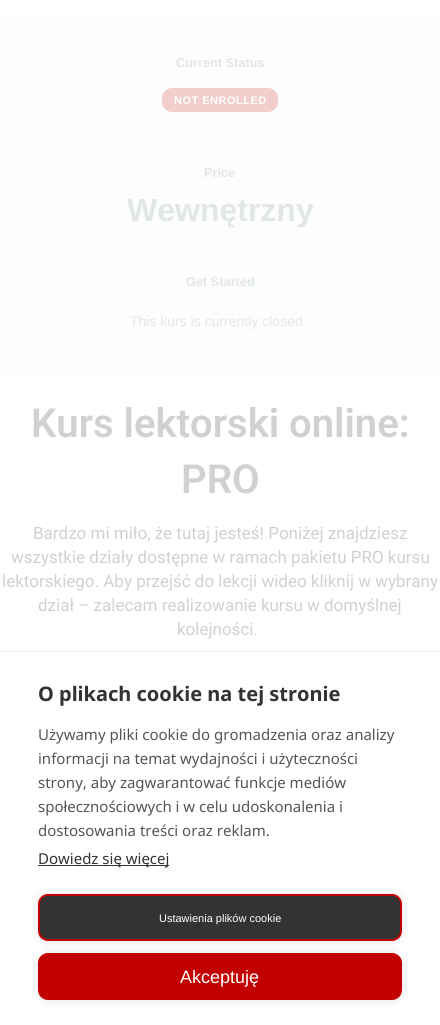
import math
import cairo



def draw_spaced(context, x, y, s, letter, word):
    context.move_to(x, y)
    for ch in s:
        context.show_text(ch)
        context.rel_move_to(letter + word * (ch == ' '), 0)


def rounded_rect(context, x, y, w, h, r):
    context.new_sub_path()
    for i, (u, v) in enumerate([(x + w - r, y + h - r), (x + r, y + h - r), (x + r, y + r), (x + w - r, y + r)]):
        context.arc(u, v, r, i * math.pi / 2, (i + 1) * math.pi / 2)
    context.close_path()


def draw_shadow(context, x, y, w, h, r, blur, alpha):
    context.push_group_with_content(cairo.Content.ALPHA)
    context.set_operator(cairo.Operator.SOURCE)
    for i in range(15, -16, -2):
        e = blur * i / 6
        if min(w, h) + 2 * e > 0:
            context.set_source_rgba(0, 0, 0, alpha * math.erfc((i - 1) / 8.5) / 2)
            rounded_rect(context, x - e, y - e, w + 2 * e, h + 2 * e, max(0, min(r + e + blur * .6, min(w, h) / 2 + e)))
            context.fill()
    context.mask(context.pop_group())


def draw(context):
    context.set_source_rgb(1, 1, 1)
    context.paint()
    context.set_source_rgb(252 / 255, 253 / 255, 253 / 255)
    rounded_rect(context, 0, 17, 440, 362, 6)
    context.fill()
    context.set_source_rgb(249 / 255, 250 / 255, 251 / 255)
    context.rectangle(162, 143, 116, 1)
    context.fill()
    context.set_source_rgb(243 / 255, 204 / 255, 204 / 255)
    rounded_rect(context, 162, 88, 116, 24, 10)
    context.fill()
    context.set_source_rgb(249 / 255, 250 / 255, 251 / 255)
    context.rectangle(127, 252, 186, 1)
    context.fill()
    context.set_source_rgb(238 / 255, 238 / 255, 238 / 255)
    context.rectangle(0, 651, 440, 1)
    context.fill()
    context.set_source_rgb(51 / 255, 51 / 255, 51 / 255)
    context.rectangle(38, 865, 131, 1)
    context.fill()
    context.set_source_rgb(0, 0, 0)
    draw_shadow(context, 38, 894, 364, 47, 10, 5, 0.12)
    context.set_source_rgb(51 / 255, 51 / 255, 51 / 255)
    rounded_rect(context, 39, 895, 362, 45, 9)
    context.fill_preserve()
    context.set_source_rgb(195 / 255, 0, 0)
    context.stroke()
    context.set_source_rgb(0, 0, 0)
    draw_shadow(context, 38, 953, 364, 47, 10, 5, 0.12)
    context.set_source_rgb(195 / 255, 0, 0)
    rounded_rect(context, 39, 954, 362, 45, 9)
    context.fill_preserve()
    context.stroke()
    context.select_font_face("Liberation Sans", cairo.FontSlant.NORMAL, cairo.FontWeight.BOLD)
    context.set_font_size(12.75)
    context.set_source_rgb(227 / 255, 230 / 255, 231 / 255)
    context.move_to(176, 67)
    context.show_text("Current Status")
    context.set_font_size(11)
    context.set_source_rgb(1, 1, 1)
    draw_spaced(context, 174, 104, "NOT ENROLLED", 0.5, 0)
    context.set_font_size(12.75)
    context.set_source_rgb(227 / 255, 230 / 255, 231 / 255)
    context.move_to(204, 177)
    context.show_text("Price")
    context.set_font_size(32)
    context.move_to(127, 221)
    context.show_text("Wewnętrzny")
    context.set_font_size(12.75)
    context.move_to(186, 286)
    context.show_text("Get Started")
    context.select_font_face("Liberation Sans")
    context.set_font_size(14)
    context.move_to(130, 326)
    context.show_text("This kurs is currently closed")
    context.select_font_face("Roboto SemiBold")
    context.set_font_size(40)
    context.set_source_rgb(209 / 255, 209 / 255, 209 / 255)
    context.move_to(31, 437)
    context.show_text("Kurs lektorski online:")
    context.move_to(181, 493)
    context.show_text("PRO")
    context.select_font_face("Roboto")
    context.set_font_size(17)
    context.move_to(33, 539)
    context.show_text("Bardzo mi miło, że tutaj jesteś! Poniżej znajdziesz")
    context.move_to(11, 563)
    context.show_text("wszystkie działy dostępne w ramach pakietu PRO kursu")
    context.move_to(2, 587)
    context.show_text("lektorskiego. Aby przejść do lekcji wideo kliknij w wybrany")
    context.move_to(38, 611)
    context.show_text("dział – zalecam realizowanie kursu w domyślnej")
    context.move_to(177, 635)
    context.show_text("kolejności.")
    context.select_font_face("Noto Sans", cairo.FontSlant.NORMAL, cairo.FontWeight.BOLD)
    context.set_font_size(20)
    context.set_source_rgb(51 / 255, 51 / 255, 51 / 255)
    context.move_to(38, 701)
    context.show_text("O plikach cookie na tej stronie")
    context.select_font_face("Noto Sans")
    context.set_font_size(15)
    context.set_source_rgb(85 / 255, 85 / 255, 85 / 255)
    context.move_to(38, 740)
    context.show_text("Używamy pliki cookie do gromadzenia oraz analizy")
    context.move_to(38, 764)
    context.show_text("informacji na temat wydajności i użyteczności")
    context.move_to(38, 788)
    context.show_text("strony, aby zagwarantować funkcje mediów")
    context.move_to(38, 812)
    context.show_text("społecznościowych i w celu udoskonalenia i")
    context.move_to(38, 836)
    context.show_text("dostosowania treści oraz reklam.")
    context.set_source_rgb(51 / 255, 51 / 255, 51 / 255)
    context.move_to(38, 864)
    context.show_text("Dowiedz się więcej")
    context.select_font_face("Liberation Sans")
    context.set_font_size(11)
    context.set_source_rgb(1, 1, 1)
    context.move_to(159, 922)
    context.show_text("Ustawienia plików cookie")
    context.set_font_size(18)
    context.move_to(180, 983)
    context.show_text("Akceptuję")


surface = cairo.ImageSurface(cairo.Format.RGB24, 440, 1025)
context = cairo.Context(surface)
options = cairo.FontOptions()
options.set_hint_metrics(cairo.HintMetrics.OFF)
options.set_hint_style(cairo.HintStyle.NONE)
context.set_font_options(options)
context.set_miter_limit(4)
draw(context)
surface.write_to_png("out.png")
